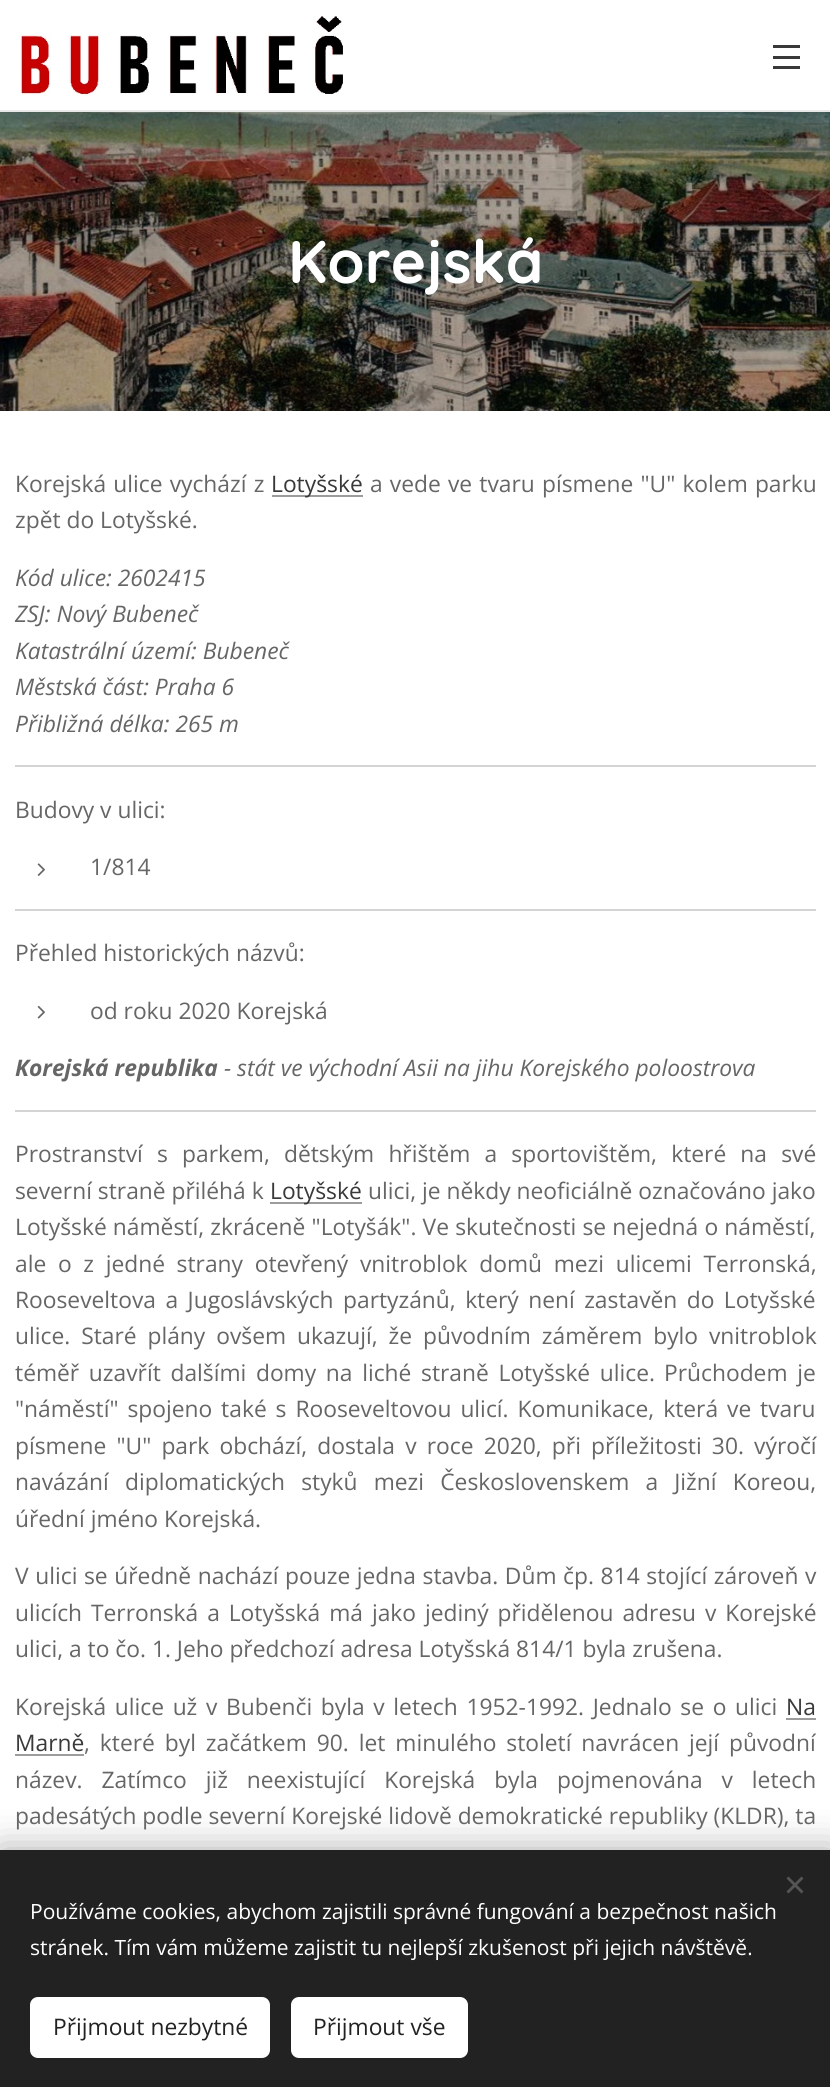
import math
import cairo



def draw_spaced(context, x, y, s, letter, word):
    context.move_to(x, y)
    for ch in s:
        context.show_text(ch)
        context.rel_move_to(letter + word * (ch == ' '), 0)


def rounded_rect(context, x, y, w, h, r):
    context.new_sub_path()
    for i, (u, v) in enumerate([(x + w - r, y + h - r), (x + r, y + h - r), (x + r, y + r), (x + w - r, y + r)]):
        context.arc(u, v, r, i * math.pi / 2, (i + 1) * math.pi / 2)
    context.close_path()


def draw_shadow(context, x, y, w, h, r, blur, alpha):
    context.push_group_with_content(cairo.Content.ALPHA)
    context.set_operator(cairo.Operator.SOURCE)
    for i in range(15, -16, -2):
        e = blur * i / 6
        if min(w, h) + 2 * e > 0:
            context.set_source_rgba(0, 0, 0, alpha * math.erfc((i - 1) / 8.5) / 2)
            rounded_rect(context, x - e, y - e, w + 2 * e, h + 2 * e, max(0, min(r + e + blur * .6, min(w, h) / 2 + e)))
            context.fill()
    context.mask(context.pop_group())


def draw_image(context, path, x, y, w, h):
    context.save()
    context.set_source_surface(cairo.ImageSurface.create_from_png(path), x, y)
    context.rectangle(x, y, w, h)
    context.fill()
    context.restore()


def draw(context):
    context.set_source_rgb(1, 1, 1)
    context.paint()
    draw_image(context, "images/1.png", 20, 16, 323, 79)
    context.set_source_rgb(57 / 255, 57 / 255, 57 / 255)
    context.rectangle(773, 56, 27, 3)
    context.fill()
    context.rectangle(773, 45, 27, 3)
    context.fill()
    context.rectangle(773, 66, 27, 3)
    context.fill()
    context.set_source_rgb(232 / 255, 232 / 255, 232 / 255)
    context.rectangle(0, 110, 830, 2)
    context.fill()
    draw_image(context, "images/2.png", 0, 112, 830, 299)
    context.set_source_rgb(156 / 255, 156 / 255, 156 / 255)
    context.rectangle(272, 495, 91, 2)
    context.fill()
    context.set_source_rgb(212 / 255, 212 / 255, 212 / 255)
    context.rectangle(15, 765, 801, 2)
    context.fill()
    draw_image(context, "images/3.png", 37, 863, 8, 13)
    context.rectangle(15, 909, 801, 2)
    context.fill()
    draw_image(context, "images/4.png", 37, 1005, 8, 14)
    context.rectangle(15, 1110, 801, 2)
    context.fill()
    context.set_source_rgb(156 / 255, 156 / 255, 156 / 255)
    context.rectangle(270, 1202, 92, 2)
    context.fill()
    context.rectangle(786, 1718, 30, 2)
    context.fill()
    context.rectangle(15, 1754, 69, 2)
    context.fill()
    context.set_source_rgb(0, 0, 0)
    draw_shadow(context, 0, 1850, 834, 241, 0, 19, 0.33)
    context.set_source_rgb(34 / 255, 34 / 255, 34 / 255)
    context.rectangle(0, 1850, 830, 237)
    context.fill()
    context.set_source_rgb(85 / 255, 85 / 255, 85 / 255)
    context.new_path()
    context.move_to(786.5, 1891.5)
    context.line_to(801.5, 1876.5)
    context.line_to(803.5, 1878.5)
    context.line_to(788.5, 1893.5)
    context.close_path()
    context.fill()
    context.new_path()
    context.move_to(788.5, 1876.5)
    context.line_to(803.5, 1891.5)
    context.line_to(801.5, 1893.5)
    context.line_to(786.5, 1878.5)
    context.close_path()
    context.fill()
    context.set_source_rgb(1, 1, 1)
    rounded_rect(context, 30, 1997, 240, 61, 8)
    context.fill()
    rounded_rect(context, 291, 1997, 177, 61, 8)
    context.fill()
    context.select_font_face("Quicksand", cairo.FontSlant.NORMAL, cairo.FontWeight.BOLD)
    context.set_font_size(60)
    context.move_to(288, 283)
    context.show_text("Korejská")
    context.select_font_face("Open Sans")
    context.set_font_size(22.8)
    context.set_source_rgb(102 / 255, 102 / 255, 102 / 255)
    draw_spaced(context, 15, 492, "Korejská ulice vychází z", 0, 1.25)
    context.set_source_rgb(57 / 255, 57 / 255, 57 / 255)
    context.move_to(271, 492)
    context.show_text("Lotyšské")
    context.set_source_rgb(102 / 255, 102 / 255, 102 / 255)
    draw_spaced(context, 370, 492, "a vede ve tvaru písmene \"U\" kolem parku", 0, 1.25)
    context.move_to(15, 528)
    context.show_text("zpět do Lotyšské.")
    context.select_font_face("Open Sans", cairo.FontSlant.ITALIC)
    context.move_to(15, 586)
    context.show_text("Kód ulice: 2602415")
    context.move_to(15, 622)
    context.show_text("ZSJ: Nový Bubeneč")
    context.move_to(15, 659)
    context.show_text("Katastrální území: Bubeneč")
    context.move_to(15, 695)
    context.show_text("Městská část: Praha 6")
    context.move_to(15, 732)
    context.show_text("Přibližná délka: 265 m")
    context.select_font_face("Open Sans")
    context.move_to(15, 818)
    context.show_text("Budovy v ulici:")
    context.move_to(90, 875)
    context.show_text("1/814")
    context.move_to(15, 961)
    context.show_text("Přehled historických názvů:")
    context.move_to(90, 1019)
    context.show_text("od roku 2020 Korejská")
    context.select_font_face("Open Sans", cairo.FontSlant.ITALIC, cairo.FontWeight.BOLD)
    context.move_to(15, 1076)
    context.show_text("Korejská republika")
    context.select_font_face("Open Sans", cairo.FontSlant.ITALIC)
    context.move_to(224, 1076)
    context.show_text("- stát ve východní Asii na jihu Korejského poloostrova")
    context.select_font_face("Open Sans")
    draw_spaced(context, 15, 1162, "Prostranství s parkem, dětským hřištěm a sportovištěm, které na své", 0, 8.25)
    context.move_to(15, 1199)
    context.show_text("severní straně přiléhá k")
    context.set_source_rgb(57 / 255, 57 / 255, 57 / 255)
    context.move_to(270, 1199)
    context.show_text("Lotyšské")
    context.set_source_rgb(102 / 255, 102 / 255, 102 / 255)
    context.move_to(368, 1199)
    context.show_text("ulici, je někdy neoficiálně označováno jako")
    draw_spaced(context, 15, 1235, "Lotyšské náměstí, zkráceně \"Lotyšák\". Ve skutečnosti se nejedná o náměstí,", 0, 0.25)
    draw_spaced(context, 15, 1272, "ale o z jedné strany otevřený vnitroblok domů mezi ulicemi Terronská,", 0, 5.75)
    draw_spaced(context, 15, 1308, "Rooseveltova a Jugoslávských partyzánů, který není zastavěn do Lotyšské", 0, 3.5)
    draw_spaced(context, 15, 1344, "ulice. Staré plány ovšem ukazují, že původním záměrem bylo vnitroblok", 0, 5)
    draw_spaced(context, 15, 1381, "téměř uzavřít dalšími domy na liché straně Lotyšské ulice.", 0, 3.75)
    draw_spaced(context, 664, 1381, "Průchodem je", 0, 3.75)
    draw_spaced(context, 15, 1417, "\"náměstí\" spojeno také s Rooseveltovou ulicí. Komunikace, která ve tvaru", 0, 3)
    draw_spaced(context, 15, 1454, "písmene \"U\" park obchází, dostala v roce 2020, při příležitosti 30. výročí", 0, 4.25)
    draw_spaced(context, 15, 1490, "navázání diplomatických styků mezi Československem a Jižní Koreou,", 0, 10.25)
    context.move_to(15, 1527)
    context.show_text("úřední jméno Korejská.")
    draw_spaced(context, 15, 1584, "V ulici se úředně nachází pouze jedna stavba. Dům čp. 814 stojící zároveň v", 0, 0.7)
    draw_spaced(context, 15, 1621, "ulicích Terronská a Lotyšská má jako jediný přidělenou adresu v Korejské", 0, 3)
    context.move_to(15, 1657)
    context.show_text("ulici, a to čo. 1. Jeho předchozí adresa Lotyšská 814/1 byla zrušena.")
    draw_spaced(context, 15, 1715, "Korejská ulice už v Bubenči byla v letech 1952-1992. Jednalo se o ulici", 0, 2.75)
    context.set_source_rgb(57 / 255, 57 / 255, 57 / 255)
    context.move_to(786, 1715)
    context.show_text("Na")
    context.move_to(15, 1751)
    context.show_text("Marně")
    context.set_source_rgb(102 / 255, 102 / 255, 102 / 255)
    draw_spaced(context, 84, 1751, ", které byl začátkem 90. let minulého století navrácen její původní", 0, 4)
    draw_spaced(context, 15, 1788, "název. Zatímco již neexistující Korejská byla pojmenována v letech", 0, 13)
    context.move_to(15, 1824)
    context.show_text("padesátých podle severní Korejské lidově demokratické republiky (KLDR), ta")
    context.set_font_size(21)
    context.set_source_rgb(1, 1, 1)
    context.move_to(30, 1919)
    context.show_text("Používáme cookies, abychom zajistili správné fungování a bezpečnost našich")
    context.move_to(30, 1955)
    context.show_text("stránek. Tím vám můžeme zajistit tu nejlepší zkušenost při jejich návštěvě.")
    context.set_font_size(22.8)
    context.set_source_rgb(34 / 255, 34 / 255, 34 / 255)
    context.move_to(53, 2035)
    context.show_text("Přijmout nezbytné")
    context.move_to(313, 2035)
    context.show_text("Přijmout vše")


surface = cairo.ImageSurface(cairo.Format.RGB24, 830, 2087)
context = cairo.Context(surface)
options = cairo.FontOptions()
options.set_hint_metrics(cairo.HintMetrics.OFF)
options.set_hint_style(cairo.HintStyle.NONE)
context.set_font_options(options)
context.set_miter_limit(4)
draw(context)
surface.write_to_png("out.png")
